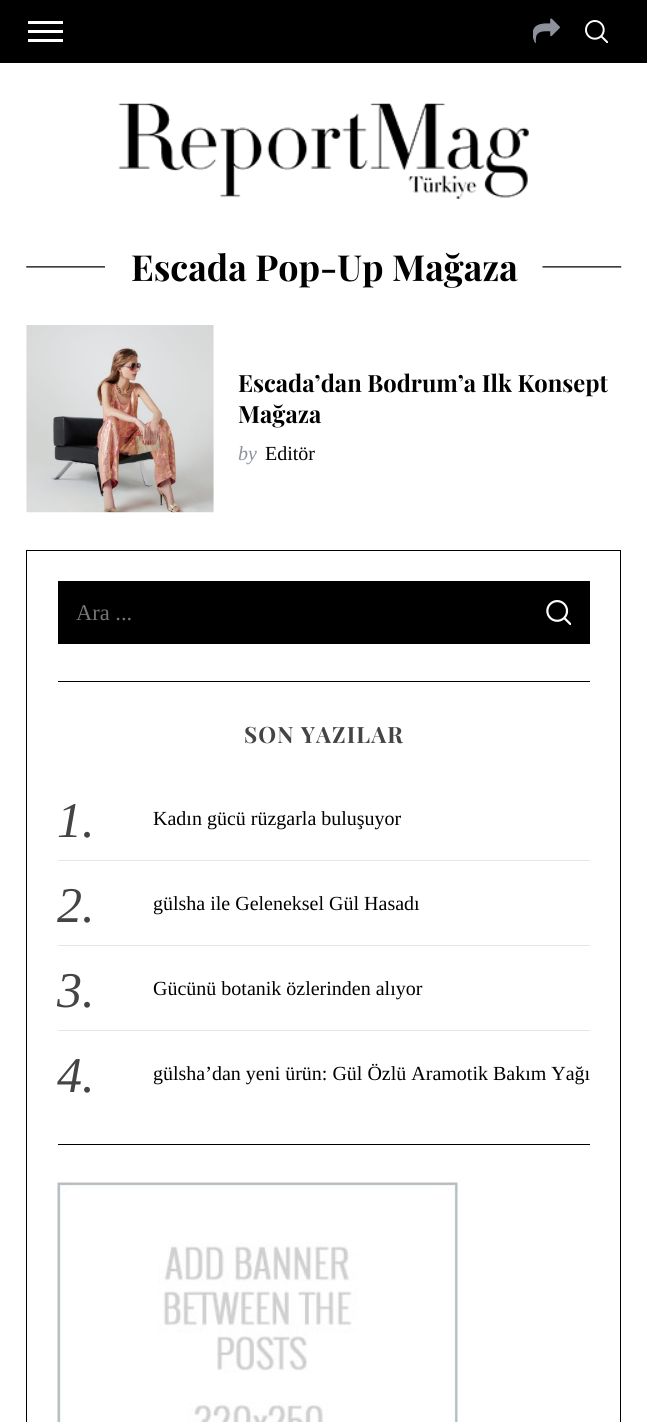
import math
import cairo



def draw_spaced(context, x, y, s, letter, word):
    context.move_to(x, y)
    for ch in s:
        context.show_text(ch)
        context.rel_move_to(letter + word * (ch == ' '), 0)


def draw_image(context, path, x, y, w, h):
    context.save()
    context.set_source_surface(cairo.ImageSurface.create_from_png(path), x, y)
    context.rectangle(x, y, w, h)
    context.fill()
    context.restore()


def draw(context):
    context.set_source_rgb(1, 1, 1)
    context.paint()
    context.set_source_rgb(0, 0, 0)
    context.rectangle(0, 0, 647, 63)
    context.fill()
    context.set_source_rgb(1, 1, 1)
    context.rectangle(28, 30, 35, 3)
    context.fill()
    context.rectangle(28, 21, 35, 3)
    context.fill()
    context.rectangle(28, 39, 35, 3)
    context.fill()
    draw_image(context, "images/1.png", 533, 18, 27, 25)
    draw_image(context, "images/2.png", 585, 20, 23, 23)
    draw_image(context, "images/3.png", 118, 103, 411, 96)
    draw_image(context, "images/4.png", 26, 266, 79, 2)
    draw_image(context, "images/5.png", 542, 266, 80, 2)
    draw_image(context, "images/6.png", 26, 325, 188, 188)
    context.rectangle(26.5, 550.5, 594, 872)
    context.set_source_rgb(0, 0, 0)
    context.set_line_width(1)
    context.stroke()
    context.rectangle(58, 681, 532, 1)
    context.fill()
    context.rectangle(58, 581, 532, 63)
    context.fill()
    draw_image(context, "images/7.png", 546, 600, 25, 25)
    context.rectangle(58, 1144, 532, 1)
    context.fill()
    context.set_source_rgb(230 / 255, 230 / 255, 230 / 255)
    context.rectangle(58, 860, 532, 1)
    context.fill()
    context.rectangle(58, 945, 532, 1)
    context.fill()
    context.rectangle(58, 1030, 532, 1)
    context.fill()
    draw_image(context, "images/8.png", 57, 1182, 401, 240)
    context.select_font_face("Playfair Display", cairo.FontSlant.NORMAL, cairo.FontWeight.BOLD)
    context.set_font_size(35.9)
    context.set_source_rgb(0, 0, 0)
    context.move_to(131, 281)
    context.show_text("Escada Pop-Up Mağaza")
    context.set_font_size(23.75)
    context.move_to(238, 392)
    context.show_text("Escada’dan Bodrum’a Ilk Konsept")
    context.move_to(238, 423)
    context.show_text("Mağaza")
    context.select_font_face("Liberation Serif", cairo.FontSlant.ITALIC)
    context.set_font_size(20)
    context.set_source_rgb(140 / 255, 145 / 255, 155 / 255)
    context.move_to(238, 460)
    context.show_text("by")
    context.select_font_face("Liberation Serif")
    context.set_source_rgb(0, 0, 0)
    context.move_to(265, 460)
    context.show_text("Editör")
    context.set_font_size(22.5)
    context.set_source_rgb(117 / 255, 117 / 255, 117 / 255)
    context.move_to(76, 620)
    context.show_text("Ara ...")
    context.select_font_face("Playfair Display", cairo.FontSlant.NORMAL, cairo.FontWeight.BOLD)
    context.set_source_rgb(68 / 255, 68 / 255, 68 / 255)
    draw_spaced(context, 244, 743, "SON YAZILAR", 1.1, 0)
    context.select_font_face("Liberation Serif", cairo.FontSlant.ITALIC)
    context.set_font_size(50)
    context.move_to(57, 837)
    context.show_text("1.")
    context.select_font_face("Liberation Serif")
    context.set_font_size(20)
    context.set_source_rgb(0, 0, 0)
    context.move_to(153, 825)
    context.show_text("Kadın gücü rüzgarla buluşuyor")
    context.select_font_face("Liberation Serif", cairo.FontSlant.ITALIC)
    context.set_font_size(50)
    context.set_source_rgb(68 / 255, 68 / 255, 68 / 255)
    context.move_to(57, 922)
    context.show_text("2.")
    context.select_font_face("Liberation Serif")
    context.set_font_size(20)
    context.set_source_rgb(0, 0, 0)
    context.move_to(153, 910)
    context.show_text("gülsha ile Geleneksel Gül Hasadı")
    context.select_font_face("Liberation Serif", cairo.FontSlant.ITALIC)
    context.set_font_size(50)
    context.set_source_rgb(68 / 255, 68 / 255, 68 / 255)
    context.move_to(57, 1007)
    context.show_text("3.")
    context.select_font_face("Liberation Serif")
    context.set_font_size(20)
    context.set_source_rgb(0, 0, 0)
    context.move_to(153, 995)
    context.show_text("Gücünü botanik özlerinden alıyor")
    context.select_font_face("Liberation Serif", cairo.FontSlant.ITALIC)
    context.set_font_size(50)
    context.set_source_rgb(68 / 255, 68 / 255, 68 / 255)
    context.move_to(57, 1092)
    context.show_text("4.")
    context.select_font_face("Liberation Serif")
    context.set_font_size(20)
    context.set_source_rgb(0, 0, 0)
    context.move_to(153, 1080)
    context.show_text("gülsha’dan yeni ürün: Gül Özlü Aramotik Bakım Yağı")


surface = cairo.ImageSurface(cairo.Format.RGB24, 647, 1422)
context = cairo.Context(surface)
options = cairo.FontOptions()
options.set_hint_metrics(cairo.HintMetrics.OFF)
options.set_hint_style(cairo.HintStyle.NONE)
context.set_font_options(options)
context.set_miter_limit(4)
draw(context)
surface.write_to_png("out.png")
